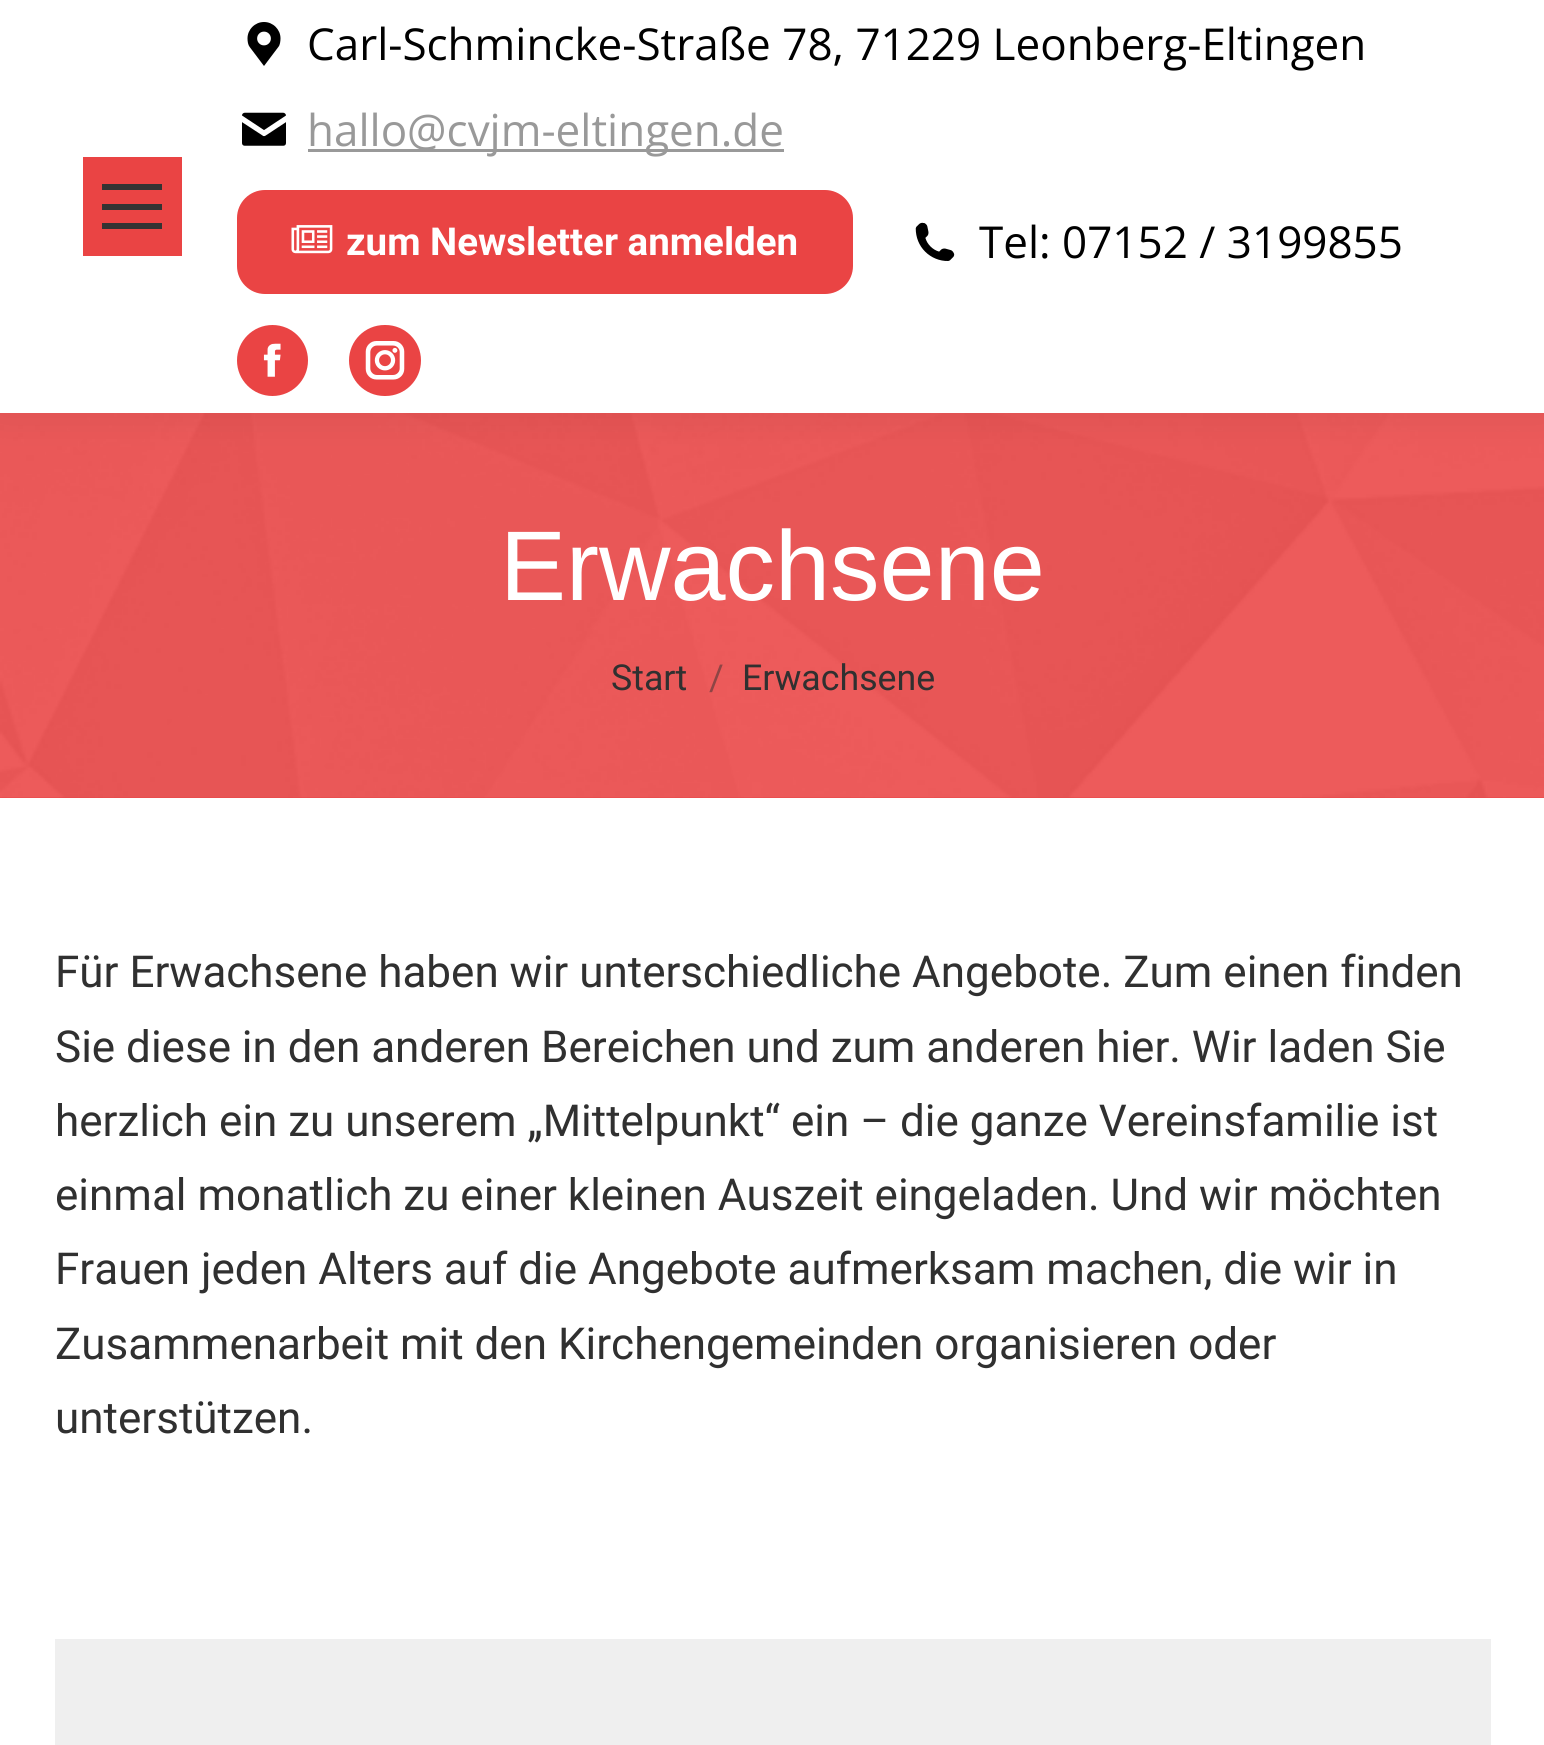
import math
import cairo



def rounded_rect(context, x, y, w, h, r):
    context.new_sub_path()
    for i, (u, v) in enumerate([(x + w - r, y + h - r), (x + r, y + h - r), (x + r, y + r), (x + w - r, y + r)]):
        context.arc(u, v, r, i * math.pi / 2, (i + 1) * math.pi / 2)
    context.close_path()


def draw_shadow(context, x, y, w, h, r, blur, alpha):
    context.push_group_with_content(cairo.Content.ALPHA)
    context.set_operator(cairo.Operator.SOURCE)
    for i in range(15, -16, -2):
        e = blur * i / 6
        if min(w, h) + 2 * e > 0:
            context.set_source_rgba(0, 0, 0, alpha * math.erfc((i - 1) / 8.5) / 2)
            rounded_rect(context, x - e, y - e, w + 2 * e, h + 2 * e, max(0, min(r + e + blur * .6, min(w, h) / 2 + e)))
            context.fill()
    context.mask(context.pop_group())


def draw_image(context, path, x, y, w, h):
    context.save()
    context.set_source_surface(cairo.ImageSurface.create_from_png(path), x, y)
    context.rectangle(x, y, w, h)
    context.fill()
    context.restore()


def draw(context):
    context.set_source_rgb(1, 1, 1)
    context.paint()
    context.set_source_rgb(234 / 255, 68 / 255, 68 / 255)
    context.rectangle(0, 413, 1544, 385)
    context.fill()
    draw_image(context, "images/7.png", 0, 413, 1544, 385)
    context.set_source_rgb(0, 0, 0)
    draw_shadow(context, -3, -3, 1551, 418, 0, 20.5, 0.07)
    context.set_source_rgb(1, 1, 1)
    context.rectangle(0, 0, 1544, 413)
    context.fill()
    context.set_source_rgb(234 / 255, 68 / 255, 68 / 255)
    context.rectangle(83, 157, 99, 99)
    context.fill()
    context.set_source_rgb(51 / 255, 51 / 255, 51 / 255)
    context.rectangle(102, 184, 60, 6)
    context.fill()
    context.rectangle(102, 204, 60, 6)
    context.fill()
    context.rectangle(102, 223, 60, 6)
    context.fill()
    draw_image(context, "images/1.png", 247, 22, 34, 44)
    draw_image(context, "images/2.png", 242, 112, 44, 34)
    context.set_source_rgb(153 / 255, 153 / 255, 153 / 255)
    context.rectangle(308, 149, 476, 3)
    context.fill()
    context.set_source_rgb(234 / 255, 68 / 255, 68 / 255)
    rounded_rect(context, 237, 190, 616, 104, 28)
    context.fill()
    draw_image(context, "images/3.png", 291, 225, 42, 29)
    draw_image(context, "images/4.png", 915, 222, 40, 39)
    context.arc(272.5, 360.5, 35.5, 0, 2 * math.pi)
    context.fill()
    draw_image(context, "images/5.png", 263, 343, 18, 34)
    rounded_rect(context, 349, 325, 72, 71, 35.5)
    context.fill()
    draw_image(context, "images/6.png", 365, 341, 40, 39)
    context.set_source_rgb(239 / 255, 239 / 255, 239 / 255)
    context.rectangle(55, 1639, 1436, 106)
    context.fill()
    context.select_font_face("Open Sans")
    context.set_font_size(44)
    context.set_source_rgb(0, 0, 0)
    context.move_to(307, 60)
    context.show_text("Carl-Schmincke-Straße 78, 71229 Leonberg-Eltingen")
    context.set_source_rgb(153 / 255, 153 / 255, 153 / 255)
    context.move_to(307, 146)
    context.show_text("hallo@cvjm-eltingen.de")
    context.select_font_face("Roboto", cairo.FontSlant.NORMAL, cairo.FontWeight.BOLD)
    context.set_font_size(38.5)
    context.set_source_rgb(1, 1, 1)
    context.move_to(346, 255)
    context.show_text("zum Newsletter anmelden")
    context.select_font_face("Open Sans")
    context.set_font_size(44)
    context.set_source_rgb(0, 0, 0)
    context.move_to(979, 258)
    context.show_text("Tel: 07152 / 3199855")
    context.select_font_face("Liberation Sans")
    context.set_font_size(99)
    context.set_source_rgb(1, 1, 1)
    context.move_to(500, 600)
    context.show_text("Erwachsene")
    context.select_font_face("Roboto")
    context.set_font_size(35.75)
    context.set_source_rgb(48 / 255, 48 / 255, 48 / 255)
    context.move_to(611, 690)
    context.show_text("Start")
    context.set_source_rgb(142 / 255, 69 / 255, 69 / 255)
    context.move_to(709, 690)
    context.show_text("/")
    context.set_source_rgb(48 / 255, 48 / 255, 48 / 255)
    context.move_to(742, 690)
    context.show_text("Erwachsene")
    context.set_font_size(44)
    context.move_to(55, 987)
    context.show_text("Für Erwachsene haben wir unterschiedliche Angebote. Zum einen finden")
    context.move_to(55, 1062)
    context.show_text("Sie diese in den anderen Bereichen und zum anderen hier. Wir laden Sie")
    context.move_to(55, 1136)
    context.show_text("herzlich ein zu unserem „Mittelpunkt“ ein – die ganze Vereinsfamilie ist")
    context.move_to(55, 1210)
    context.show_text("einmal monatlich zu einer kleinen Auszeit eingeladen. Und wir möchten")
    context.move_to(55, 1284)
    context.show_text("Frauen jeden Alters auf die Angebote aufmerksam machen, die wir in")
    context.move_to(55, 1359)
    context.show_text("Zusammenarbeit mit den Kirchengemeinden organisieren oder")
    context.move_to(55, 1433)
    context.show_text("unterstützen.")


surface = cairo.ImageSurface(cairo.Format.RGB24, 1544, 1745)
context = cairo.Context(surface)
options = cairo.FontOptions()
options.set_hint_metrics(cairo.HintMetrics.OFF)
options.set_hint_style(cairo.HintStyle.NONE)
context.set_font_options(options)
context.set_miter_limit(4)
draw(context)
surface.write_to_png("out.png")
